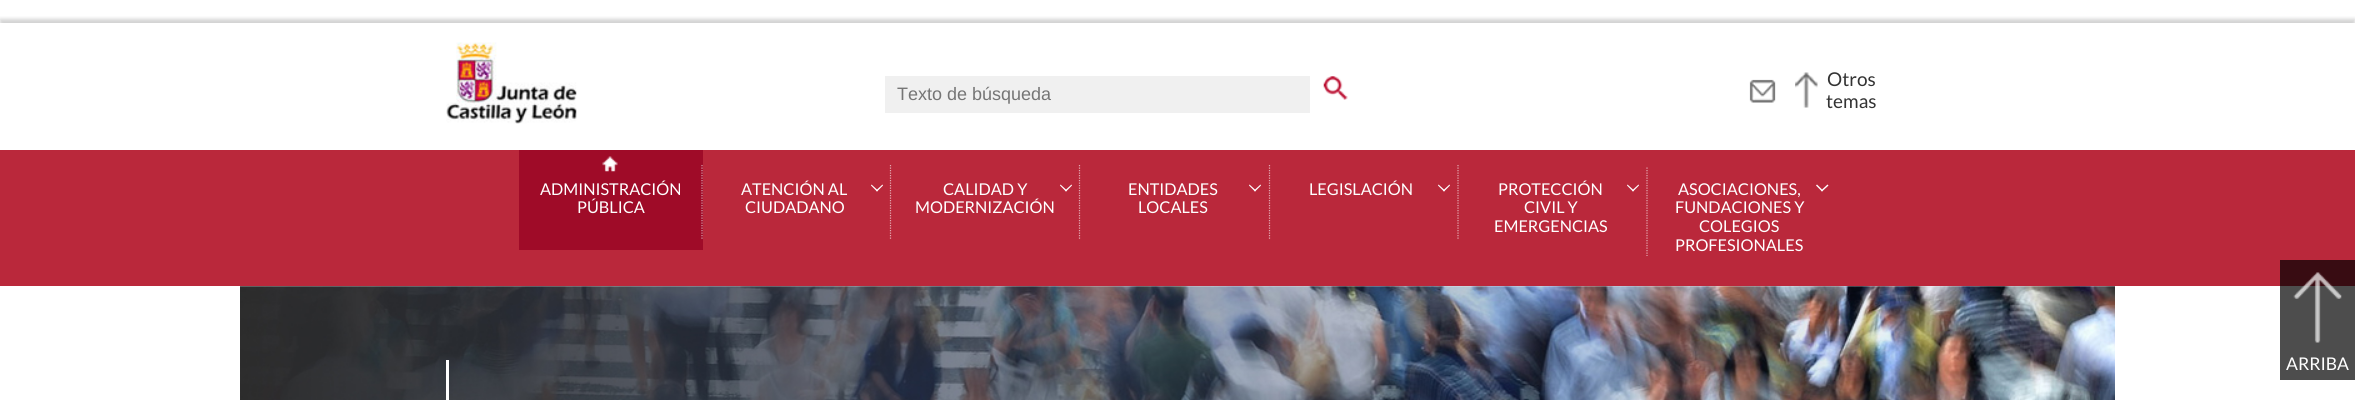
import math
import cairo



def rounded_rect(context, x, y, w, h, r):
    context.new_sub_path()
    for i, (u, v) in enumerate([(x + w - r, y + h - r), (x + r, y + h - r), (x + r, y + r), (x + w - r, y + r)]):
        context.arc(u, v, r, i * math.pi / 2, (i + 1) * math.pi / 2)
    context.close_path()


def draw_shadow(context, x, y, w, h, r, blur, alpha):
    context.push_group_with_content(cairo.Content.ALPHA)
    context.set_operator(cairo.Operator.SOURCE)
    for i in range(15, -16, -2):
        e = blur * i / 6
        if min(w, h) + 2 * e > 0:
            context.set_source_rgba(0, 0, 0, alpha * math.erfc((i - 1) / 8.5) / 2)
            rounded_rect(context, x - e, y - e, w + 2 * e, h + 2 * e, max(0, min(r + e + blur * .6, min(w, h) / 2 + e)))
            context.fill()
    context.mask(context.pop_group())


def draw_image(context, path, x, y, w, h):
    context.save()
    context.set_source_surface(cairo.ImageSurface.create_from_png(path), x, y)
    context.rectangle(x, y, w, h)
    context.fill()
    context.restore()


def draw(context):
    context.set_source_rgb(1, 1, 1)
    context.paint()
    context.set_source_rgb(77 / 255, 77 / 255, 77 / 255)
    context.rectangle(2280, 286, 75, 94)
    context.fill()
    context.save()
    context.rectangle(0, 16, 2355, 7)
    context.clip()
    context.set_source_rgb(75 / 255, 75 / 255, 75 / 255)
    draw_shadow(context, 0, 19, 2355, 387, 0, 2, 0.25)
    context.restore()
    draw_image(context, "images/1.png", 446, 42, 131, 82)
    context.set_source_rgb(240 / 255, 240 / 255, 240 / 255)
    context.rectangle(885, 76, 425, 37)
    context.fill()
    draw_image(context, "images/2.png", 1323, 76, 25, 24)
    draw_image(context, "images/3.png", 1749, 79, 27, 24)
    draw_image(context, "images/4.png", 1795, 72, 23, 36)
    context.set_source_rgb(186 / 255, 40 / 255, 59 / 255)
    context.rectangle(0, 150, 2355, 136)
    context.fill()
    context.set_source_rgb(56 / 255, 12 / 255, 18 / 255)
    context.rectangle(2280, 260, 75, 26)
    context.fill()
    context.set_source_rgb(159 / 255, 11 / 255, 40 / 255)
    context.rectangle(519, 150, 184, 100)
    context.fill()
    draw_image(context, "images/5.png", 602, 156, 16, 16)
    context.new_path()
    context.move_to(702, 165)
    context.line_to(702, 240)
    context.set_source_rgb(217 / 255, 157 / 255, 169 / 255)
    context.set_line_width(1.2)
    context.set_dash([1.25, 1.25])
    context.stroke()
    context.set_source_rgb(1, 1, 1)
    context.new_path()
    context.move_to(882.5, 184.5)
    context.line_to(883, 185.5)
    context.line_to(877, 191.5)
    context.line_to(876, 190.5)
    context.close_path()
    context.fill()
    context.new_path()
    context.move_to(871.5, 184.5)
    context.line_to(878, 190.5)
    context.line_to(877, 191.5)
    context.line_to(871, 185.5)
    context.close_path()
    context.fill()
    context.new_path()
    context.move_to(890.5, 165)
    context.line_to(890.5, 240)
    context.set_source_rgb(227 / 255, 169 / 255, 177 / 255)
    context.stroke()
    context.set_source_rgb(1, 1, 1)
    context.new_path()
    context.move_to(1071.5, 184.5)
    context.line_to(1072, 185.5)
    context.line_to(1066, 191.5)
    context.line_to(1065, 190.5)
    context.close_path()
    context.fill()
    context.new_path()
    context.move_to(1060.5, 184.5)
    context.line_to(1067, 190.5)
    context.line_to(1066, 191.5)
    context.line_to(1060, 185.5)
    context.close_path()
    context.fill()
    context.new_path()
    context.move_to(1079.5, 165)
    context.line_to(1079.5, 240)
    context.set_source_rgb(227 / 255, 169 / 255, 177 / 255)
    context.stroke()
    context.set_source_rgb(1, 1, 1)
    context.new_path()
    context.move_to(1260.5, 184.5)
    context.line_to(1261, 185.5)
    context.line_to(1255, 191.5)
    context.line_to(1254, 190.5)
    context.close_path()
    context.fill()
    context.new_path()
    context.move_to(1249.5, 184.5)
    context.line_to(1256, 190.5)
    context.line_to(1255, 191.5)
    context.line_to(1249, 185.5)
    context.close_path()
    context.fill()
    context.new_path()
    context.move_to(1269.5, 165)
    context.line_to(1269.5, 240)
    context.set_source_rgb(227 / 255, 169 / 255, 177 / 255)
    context.stroke()
    context.set_source_rgb(1, 1, 1)
    context.new_path()
    context.move_to(1449.5, 184.5)
    context.line_to(1450, 185.5)
    context.line_to(1444, 191.5)
    context.line_to(1443, 190.5)
    context.close_path()
    context.fill()
    context.new_path()
    context.move_to(1438.5, 184.5)
    context.line_to(1445, 190.5)
    context.line_to(1444, 191.5)
    context.line_to(1438, 185.5)
    context.close_path()
    context.fill()
    context.new_path()
    context.move_to(1458, 165)
    context.line_to(1458, 240)
    context.set_source_rgb(227 / 255, 169 / 255, 177 / 255)
    context.stroke()
    context.set_source_rgb(1, 1, 1)
    context.new_path()
    context.move_to(1638.5, 184.5)
    context.line_to(1639, 185.5)
    context.line_to(1633, 191.5)
    context.line_to(1632, 190.5)
    context.close_path()
    context.fill()
    context.new_path()
    context.move_to(1627.5, 184.5)
    context.line_to(1634, 190.5)
    context.line_to(1633, 191.5)
    context.line_to(1627, 185.5)
    context.close_path()
    context.fill()
    context.new_path()
    context.move_to(1647, 167.5)
    context.line_to(1647, 256)
    context.set_source_rgb(227 / 255, 169 / 255, 177 / 255)
    context.stroke()
    context.set_source_rgb(1, 1, 1)
    context.new_path()
    context.move_to(1827.5, 184.5)
    context.line_to(1828.5, 185.5)
    context.line_to(1822, 191.5)
    context.line_to(1821, 190.5)
    context.close_path()
    context.fill()
    context.new_path()
    context.move_to(1817, 184.5)
    context.line_to(1823, 190.5)
    context.line_to(1822, 191.5)
    context.line_to(1816, 185.5)
    context.close_path()
    context.fill()
    draw_image(context, "images/6.png", 240, 286, 1875, 114)
    context.rectangle(446, 360, 3, 40)
    context.fill()
    draw_image(context, "images/7.png", 2293, 272, 49, 71)
    context.select_font_face("Liberation Sans")
    context.set_font_size(18)
    context.set_source_rgb(117 / 255, 117 / 255, 117 / 255)
    context.move_to(897, 100)
    context.show_text("Texto de búsqueda")
    context.select_font_face("Lato")
    context.set_font_size(19)
    context.set_source_rgb(51 / 255, 51 / 255, 51 / 255)
    context.move_to(1827, 86)
    context.show_text("Otros")
    context.move_to(1826, 108)
    context.show_text("temas")
    context.set_font_size(16.25)
    context.set_source_rgb(1, 1, 1)
    context.move_to(540, 195)
    context.show_text("ADMINISTRACIÓN")
    context.move_to(577, 213)
    context.show_text("PÚBLICA")
    context.move_to(741, 195)
    context.show_text("ATENCIÓN AL")
    context.move_to(745, 213)
    context.show_text("CIUDADANO")
    context.move_to(943, 195)
    context.show_text("CALIDAD Y")
    context.move_to(915, 213)
    context.show_text("MODERNIZACIÓN")
    context.move_to(1128, 195)
    context.show_text("ENTIDADES")
    context.move_to(1138, 213)
    context.show_text("LOCALES")
    context.move_to(1309, 195)
    context.show_text("LEGISLACIÓN")
    context.move_to(1498, 195)
    context.show_text("PROTECCIÓN")
    context.move_to(1524, 213)
    context.show_text("CIVIL Y")
    context.move_to(1494, 232)
    context.show_text("EMERGENCIAS")
    context.move_to(1678, 195)
    context.show_text("ASOCIACIONES,")
    context.move_to(1675, 213)
    context.show_text("FUNDACIONES Y")
    context.move_to(1699, 232)
    context.show_text("COLEGIOS")
    context.move_to(1675, 251)
    context.show_text("PROFESIONALES")
    context.set_font_size(17.5)
    context.move_to(2286, 370)
    context.show_text("ARRIBA")


surface = cairo.ImageSurface(cairo.Format.RGB24, 2355, 400)
context = cairo.Context(surface)
options = cairo.FontOptions()
options.set_hint_metrics(cairo.HintMetrics.OFF)
options.set_hint_style(cairo.HintStyle.NONE)
context.set_font_options(options)
context.set_miter_limit(4)
draw(context)
surface.write_to_png("out.png")
